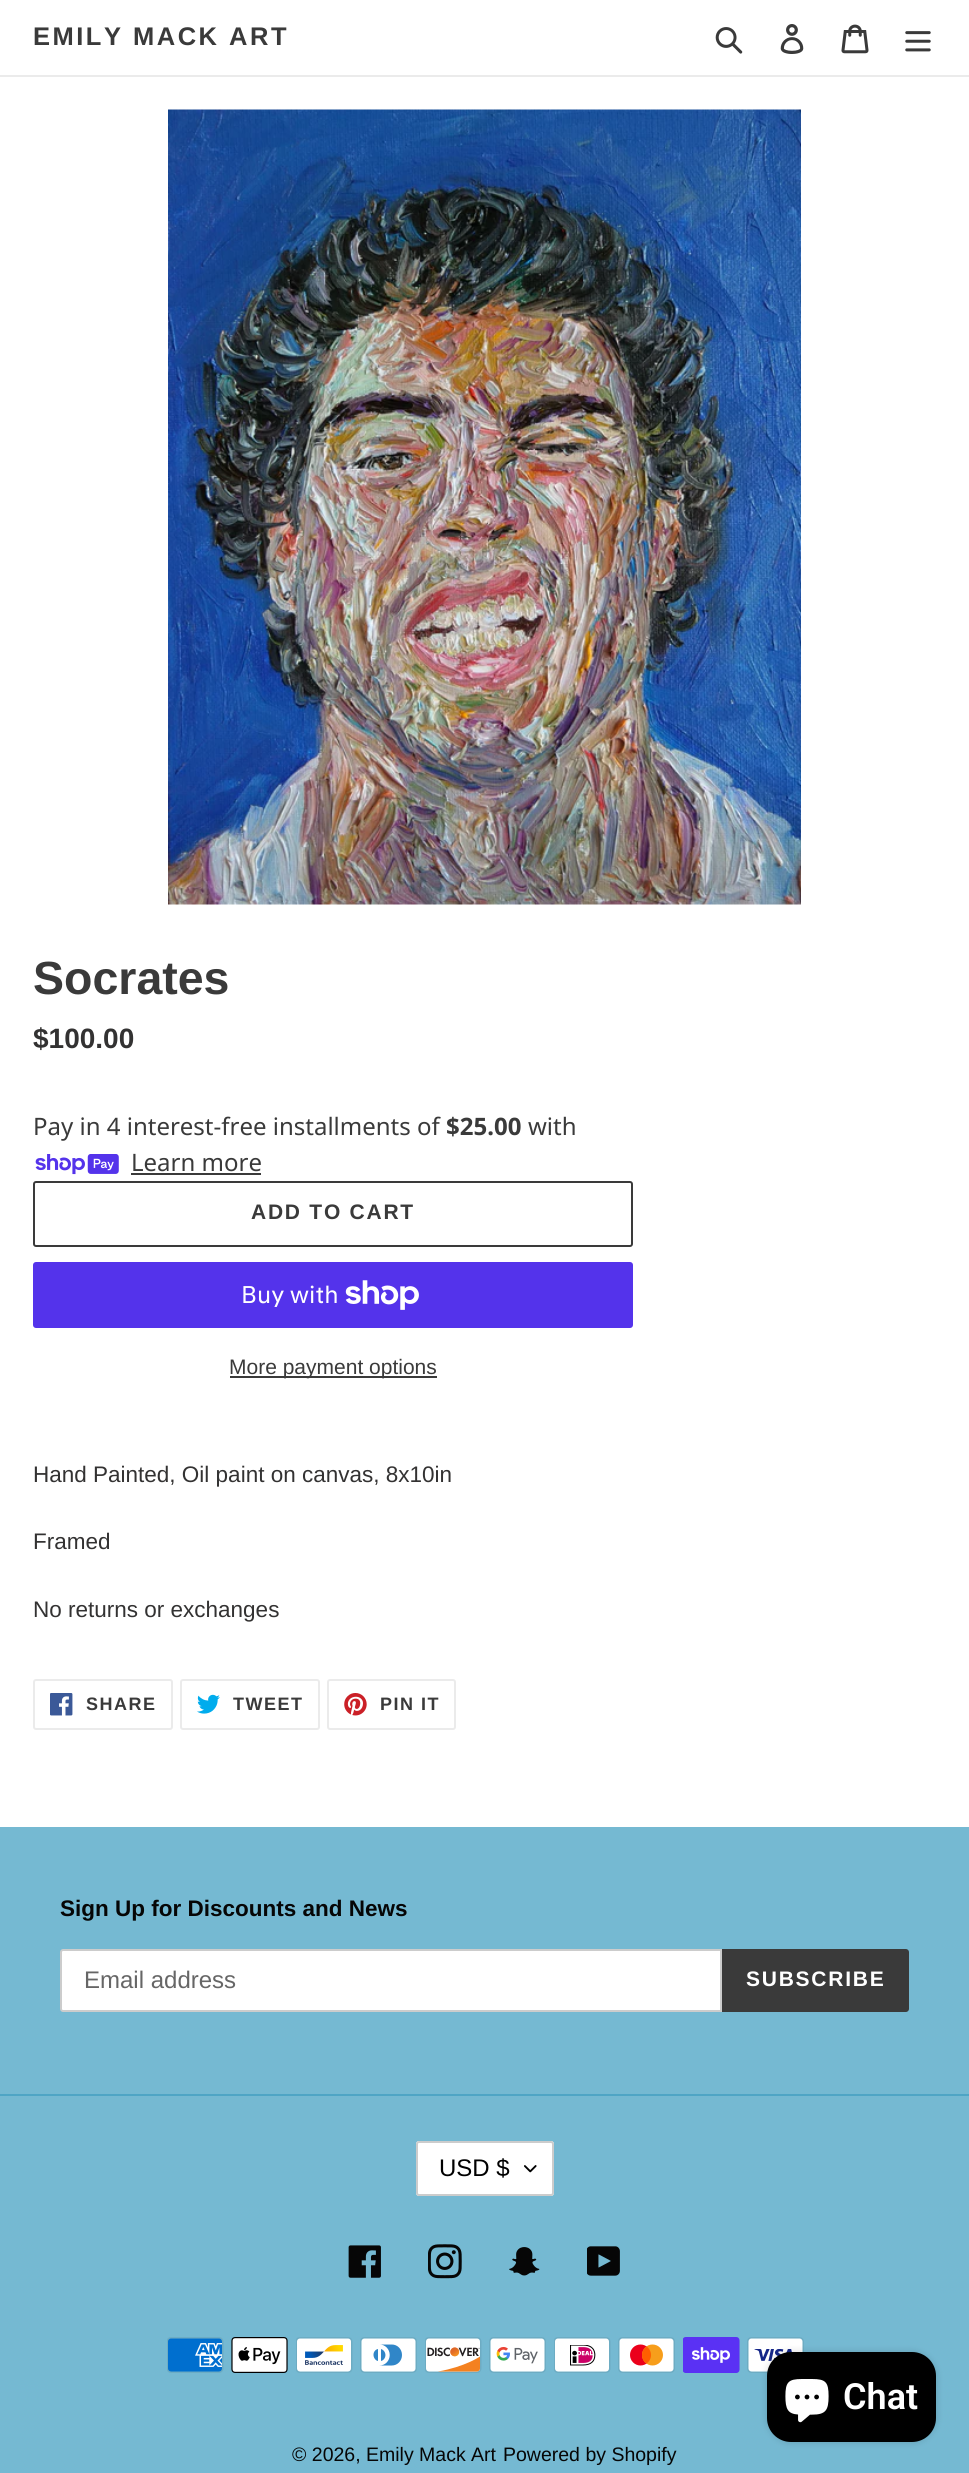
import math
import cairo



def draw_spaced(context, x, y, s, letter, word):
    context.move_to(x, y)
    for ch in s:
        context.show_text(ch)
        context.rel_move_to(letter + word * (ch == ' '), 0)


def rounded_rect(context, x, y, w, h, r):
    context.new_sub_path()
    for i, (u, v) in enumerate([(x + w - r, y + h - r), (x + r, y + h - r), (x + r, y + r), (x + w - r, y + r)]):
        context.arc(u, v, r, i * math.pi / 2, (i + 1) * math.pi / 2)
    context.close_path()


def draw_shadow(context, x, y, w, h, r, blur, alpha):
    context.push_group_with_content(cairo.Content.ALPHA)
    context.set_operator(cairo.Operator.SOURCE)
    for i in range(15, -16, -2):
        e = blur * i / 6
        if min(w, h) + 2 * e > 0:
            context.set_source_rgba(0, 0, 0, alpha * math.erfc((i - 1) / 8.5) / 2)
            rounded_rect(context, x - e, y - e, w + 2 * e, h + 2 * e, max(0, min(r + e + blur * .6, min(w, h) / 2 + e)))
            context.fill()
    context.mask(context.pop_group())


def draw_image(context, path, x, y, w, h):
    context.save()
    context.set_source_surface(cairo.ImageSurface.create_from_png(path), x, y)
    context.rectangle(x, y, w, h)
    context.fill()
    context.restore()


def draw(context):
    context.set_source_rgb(1, 1, 1)
    context.paint()
    context.set_source_rgb(235 / 255, 235 / 255, 235 / 255)
    context.rectangle(0, 75, 969, 2)
    context.fill()
    draw_image(context, "images/1.png", 715, 27, 28, 27)
    draw_image(context, "images/2.png", 780, 24, 24, 30)
    draw_image(context, "images/3.png", 841, 24, 28, 30)
    draw_image(context, "images/4.png", 905, 31, 26, 21)
    draw_image(context, "images/5.png", 168, 109, 633, 796)
    draw_image(context, "images/6.png", 35, 1154, 84, 21)
    context.set_source_rgb(58 / 255, 58 / 255, 58 / 255)
    context.rectangle(131, 1173, 130, 2)
    context.fill()
    rounded_rect(context, 34, 1182, 598, 64, 2)
    context.stroke()
    context.set_source_rgb(84 / 255, 51 / 255, 235 / 255)
    rounded_rect(context, 33, 1262, 600, 66, 3)
    context.fill()
    draw_image(context, "images/7.png", 345, 1280, 74, 30)
    context.set_source_rgb(58 / 255, 58 / 255, 58 / 255)
    context.rectangle(230, 1376, 207, 2)
    context.fill()
    rounded_rect(context, 34, 1680, 138, 49, 2)
    context.set_source_rgb(235 / 255, 235 / 255, 235 / 255)
    context.stroke()
    draw_image(context, "images/8.png", 50, 1693, 23, 23)
    rounded_rect(context, 181, 1680, 138, 49, 2)
    context.stroke()
    draw_image(context, "images/9.png", 197, 1694, 23, 20)
    rounded_rect(context, 328, 1680, 127, 49, 2)
    context.stroke()
    draw_image(context, "images/10.png", 344, 1693, 23, 23)
    context.set_source_rgb(117 / 255, 185 / 255, 210 / 255)
    context.rectangle(0, 1827, 969, 646)
    context.fill()
    context.set_source_rgb(1, 1, 1)
    context.new_path()
    context.move_to(63, 1950)
    context.line_to(721, 1950)
    context.line_to(721, 2011)
    context.line_to(63, 2011)
    context.curve_to(62, 2011, 61, 2010, 61, 2009)
    context.line_to(61, 1952)
    context.curve_to(61, 1951, 62, 1950, 63, 1950)
    context.close_path()
    context.fill_preserve()
    context.set_source_rgb(204 / 255, 204 / 255, 204 / 255)
    context.stroke()
    context.set_source_rgb(58 / 255, 58 / 255, 58 / 255)
    context.new_path()
    context.move_to(722, 1949)
    context.line_to(906, 1949)
    context.curve_to(907.5, 1949, 909, 1950.5, 909, 1952)
    context.line_to(909, 2009)
    context.curve_to(909, 2010.5, 907.5, 2012, 906, 2012)
    context.line_to(722, 2012)
    context.close_path()
    context.fill()
    context.set_source_rgb(79 / 255, 165 / 255, 197 / 255)
    context.rectangle(0, 2094, 969, 2)
    context.fill()
    context.set_source_rgb(1, 1, 1)
    rounded_rect(context, 416, 2141, 138, 55, 3)
    context.fill()
    draw_image(context, "images/11.png", 524, 2165, 13, 8)
    rounded_rect(context, 417, 2142, 136, 53, 2)
    context.set_source_rgb(204 / 255, 204 / 255, 204 / 255)
    context.stroke()
    draw_image(context, "images/12.png", 348, 2245, 33, 33)
    draw_image(context, "images/13.png", 428, 2244, 34, 35)
    draw_image(context, "images/14.png", 509, 2247, 31, 29)
    draw_image(context, "images/15.png", 587, 2246, 33, 30)
    draw_image(context, "images/16.png", 167, 2337, 57, 36)
    draw_image(context, "images/17.png", 231, 2337, 57, 36)
    draw_image(context, "images/18.png", 296, 2337, 57, 36)
    draw_image(context, "images/19.png", 360, 2337, 57, 36)
    draw_image(context, "images/20.png", 425, 2337, 57, 36)
    draw_image(context, "images/21.png", 489, 2337, 57, 36)
    draw_image(context, "images/22.png", 554, 2337, 57, 36)
    draw_image(context, "images/23.png", 618, 2337, 57, 36)
    draw_image(context, "images/24.png", 683, 2337, 57, 36)
    draw_image(context, "images/25.png", 747, 2337, 57, 36)
    context.set_source_rgb(0, 0, 0)
    draw_shadow(context, 767, 2352, 169, 90, 24, 4, 0.15)
    context.set_source_rgb(0, 0, 0)
    rounded_rect(context, 767, 2352, 169, 90, 24)
    context.fill()
    draw_image(context, "images/26.png", 785, 2379, 44, 44)
    context.select_font_face("Liberation Sans", cairo.FontSlant.NORMAL, cairo.FontWeight.BOLD)
    context.set_font_size(25.5)
    context.set_source_rgb(58 / 255, 58 / 255, 58 / 255)
    draw_spaced(context, 33, 45, "EMILY MACK ART", 2.5, 0)
    context.set_font_size(46.5)
    context.move_to(33, 994)
    context.show_text("Socrates")
    context.set_font_size(28)
    context.set_source_rgb(51 / 255, 50 / 255, 50 / 255)
    context.move_to(33, 1048)
    context.show_text("$100.00")
    context.select_font_face("Noto Sans")
    context.set_font_size(24)
    context.set_source_rgb(58 / 255, 58 / 255, 58 / 255)
    context.move_to(33, 1135)
    context.show_text("Pay in 4 interest-free installments of")
    context.select_font_face("Noto Sans", cairo.FontSlant.NORMAL, cairo.FontWeight.BOLD)
    context.move_to(446, 1135)
    context.show_text("$25.00")
    context.select_font_face("Noto Sans")
    context.move_to(528, 1135)
    context.show_text("with")
    context.move_to(131, 1171)
    context.show_text("Learn more")
    context.select_font_face("Liberation Sans", cairo.FontSlant.NORMAL, cairo.FontWeight.BOLD)
    context.set_font_size(21)
    draw_spaced(context, 251, 1219, "ADD TO CART", 1.75, 0)
    context.select_font_face("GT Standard")
    context.set_font_size(24)
    context.set_source_rgb(1, 1, 1)
    context.move_to(241, 1303)
    context.show_text("Buy with")
    context.select_font_face("Liberation Sans")
    context.set_font_size(21)
    context.set_source_rgb(58 / 255, 58 / 255, 58 / 255)
    context.move_to(229, 1374)
    context.show_text("More payment options")
    context.set_font_size(22.5)
    context.set_source_rgb(51 / 255, 50 / 255, 50 / 255)
    context.move_to(33, 1482)
    context.show_text("Hand Painted, Oil paint on canvas, 8x10in")
    context.move_to(33, 1549)
    context.show_text("Framed")
    context.move_to(33, 1617)
    context.show_text("No returns or exchanges")
    context.select_font_face("Liberation Sans", cairo.FontSlant.NORMAL, cairo.FontWeight.BOLD)
    context.set_font_size(18)
    context.set_source_rgb(58 / 255, 58 / 255, 58 / 255)
    draw_spaced(context, 86, 1710, "SHARE", 1.5, 0)
    draw_spaced(context, 233, 1710, "TWEET", 1.5, 0)
    draw_spaced(context, 380, 1710, "PIN IT", 1.5, 0)
    context.set_font_size(22.5)
    context.set_source_rgb(6 / 255, 6 / 255, 6 / 255)
    context.move_to(60, 1916)
    context.show_text("Sign Up for Discounts and News")
    context.select_font_face("Liberation Sans")
    context.set_font_size(24)
    context.set_source_rgb(102 / 255, 102 / 255, 102 / 255)
    context.move_to(84, 1988)
    context.show_text("Email address")
    context.select_font_face("Liberation Sans", cairo.FontSlant.NORMAL, cairo.FontWeight.BOLD)
    context.set_font_size(21)
    context.set_source_rgb(1, 1, 1)
    draw_spaced(context, 746, 1986, "SUBSCRIBE", 1.75, 0)
    context.select_font_face("Liberation Sans")
    context.set_font_size(24)
    context.set_source_rgb(0, 0, 0)
    context.move_to(439, 2176)
    context.show_text("USD $")
    context.set_font_size(19.5)
    context.set_source_rgb(6 / 255, 6 / 255, 6 / 255)
    context.move_to(292, 2461)
    context.show_text("© 2026, Emily Mack Art")
    context.move_to(503, 2461)
    context.show_text("Powered by Shopify")
    context.select_font_face("Roboto SemiBold")
    context.set_font_size(36)
    context.set_source_rgb(1, 1, 1)
    context.move_to(843, 2409)
    context.show_text("Chat")


surface = cairo.ImageSurface(cairo.Format.RGB24, 969, 2473)
context = cairo.Context(surface)
options = cairo.FontOptions()
options.set_hint_metrics(cairo.HintMetrics.OFF)
options.set_hint_style(cairo.HintStyle.NONE)
context.set_font_options(options)
context.set_miter_limit(4)
draw(context)
surface.write_to_png("out.png")
